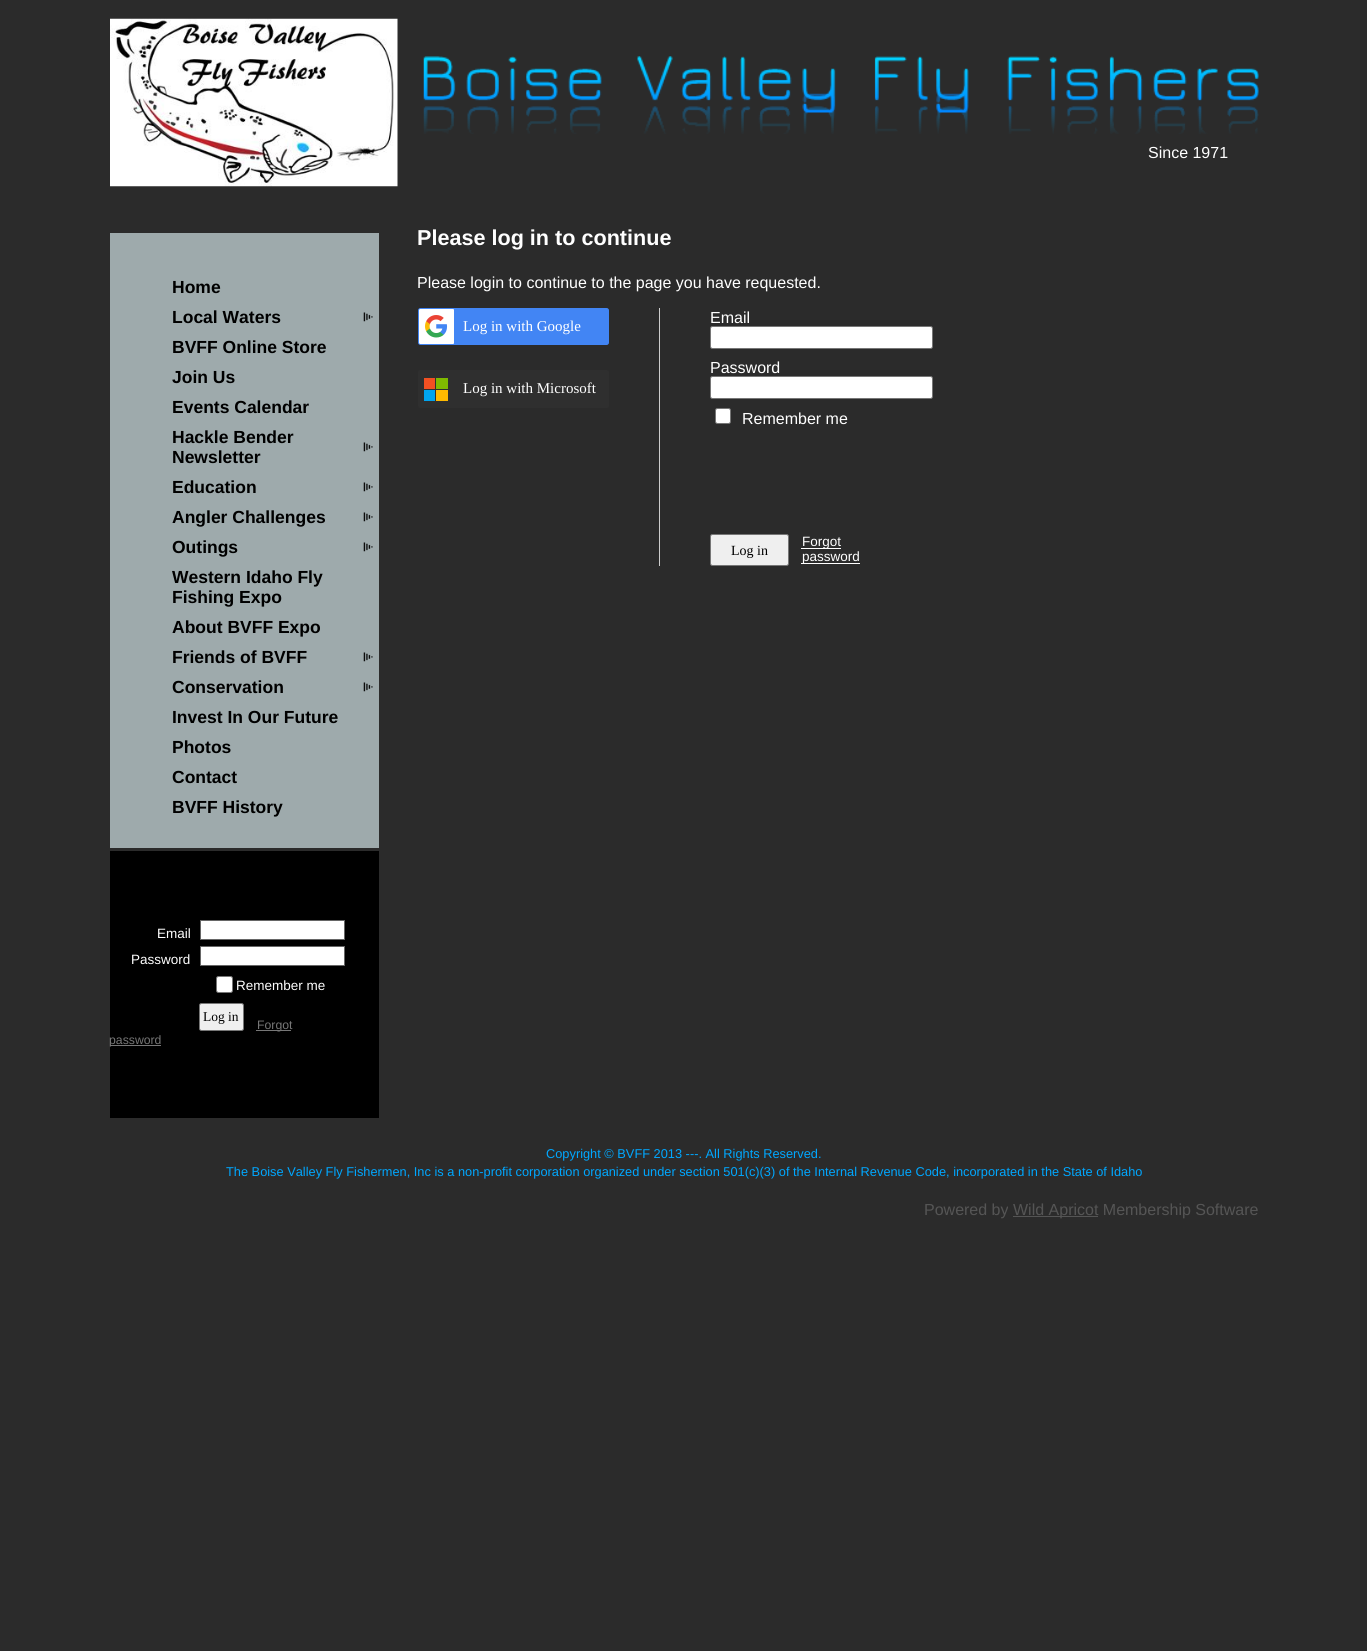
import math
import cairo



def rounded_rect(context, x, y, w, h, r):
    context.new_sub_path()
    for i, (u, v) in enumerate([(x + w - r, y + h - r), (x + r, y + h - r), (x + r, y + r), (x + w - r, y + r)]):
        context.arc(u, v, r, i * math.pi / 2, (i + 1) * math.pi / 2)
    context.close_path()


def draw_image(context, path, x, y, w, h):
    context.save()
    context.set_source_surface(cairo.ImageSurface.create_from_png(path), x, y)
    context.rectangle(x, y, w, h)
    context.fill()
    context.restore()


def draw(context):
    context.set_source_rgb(43 / 255, 43 / 255, 43 / 255)
    context.paint()
    draw_image(context, "images/1.png", 110, 18, 288, 169)
    draw_image(context, "images/2.png", 423, 56, 836, 78)
    context.set_source_rgb(158 / 255, 170 / 255, 172 / 255)
    context.rectangle(110, 233, 269, 615)
    context.fill()
    draw_image(context, "images/3.png", 363, 312, 10, 10)
    draw_image(context, "images/3.png", 363, 442, 10, 10)
    draw_image(context, "images/3.png", 363, 482, 10, 10)
    draw_image(context, "images/4.png", 363, 512, 10, 10)
    draw_image(context, "images/3.png", 363, 542, 10, 10)
    draw_image(context, "images/3.png", 363, 652, 10, 10)
    draw_image(context, "images/3.png", 363, 682, 10, 10)
    context.set_source_rgb(0, 0, 0)
    context.rectangle(110, 851, 269, 267)
    context.fill()
    context.set_source_rgb(1, 1, 1)
    context.rectangle(200.5, 920.5, 144, 19)
    context.fill_preserve()
    context.set_source_rgb(102 / 255, 102 / 255, 102 / 255)
    context.set_line_width(1)
    context.stroke()
    context.set_source_rgb(1, 1, 1)
    context.rectangle(200.5, 946.5, 144, 19)
    context.fill_preserve()
    context.set_source_rgb(102 / 255, 102 / 255, 102 / 255)
    context.stroke()
    context.set_source_rgb(1, 1, 1)
    rounded_rect(context, 216.5, 976.5, 16, 16, 2)
    context.fill_preserve()
    context.set_source_rgb(118 / 255, 118 / 255, 118 / 255)
    context.stroke()
    context.set_source_rgb(239 / 255, 239 / 255, 239 / 255)
    rounded_rect(context, 199.5, 1003.5, 44, 27, 2)
    context.fill_preserve()
    context.set_source_rgb(118 / 255, 118 / 255, 118 / 255)
    context.stroke()
    context.set_source_rgb(119 / 255, 119 / 255, 119 / 255)
    context.rectangle(256, 1030, 35, 1)
    context.fill()
    context.rectangle(110, 1045, 51, 1)
    context.fill()
    context.set_source_rgb(205 / 255, 205 / 255, 205 / 255)
    context.rectangle(659, 308, 1, 258)
    context.fill()
    context.set_source_rgb(66 / 255, 133 / 255, 244 / 255)
    rounded_rect(context, 418.5, 308.5, 190, 36, 2)
    context.fill_preserve()
    context.stroke()
    draw_image(context, "images/5.png", 419, 309, 35, 35)
    context.set_source_rgb(47 / 255, 47 / 255, 47 / 255)
    rounded_rect(context, 418, 370, 191, 38, 2.5)
    context.fill()
    context.set_source_rgb(242 / 255, 80 / 255, 34 / 255)
    context.rectangle(424, 378, 11, 11)
    context.fill()
    context.set_source_rgb(0, 164 / 255, 239 / 255)
    context.rectangle(424, 390, 11, 11)
    context.fill()
    context.set_source_rgb(127 / 255, 186 / 255, 0)
    context.rectangle(436, 378, 12, 11)
    context.fill()
    context.set_source_rgb(1, 185 / 255, 0)
    context.rectangle(436, 390, 12, 11)
    context.fill()
    context.set_source_rgb(1, 1, 1)
    rounded_rect(context, 710.5, 326.5, 222, 22, 2)
    context.fill_preserve()
    context.set_source_rgb(118 / 255, 118 / 255, 118 / 255)
    context.stroke()
    context.set_source_rgb(1, 1, 1)
    rounded_rect(context, 710.5, 376.5, 222, 22, 2)
    context.fill_preserve()
    context.set_source_rgb(118 / 255, 118 / 255, 118 / 255)
    context.stroke()
    context.set_source_rgb(1, 1, 1)
    rounded_rect(context, 715.5, 408.5, 15, 15, 2)
    context.fill_preserve()
    context.set_source_rgb(118 / 255, 118 / 255, 118 / 255)
    context.stroke()
    context.set_source_rgb(239 / 255, 239 / 255, 239 / 255)
    rounded_rect(context, 710.5, 534.5, 78, 31, 2)
    context.fill_preserve()
    context.set_source_rgb(118 / 255, 118 / 255, 118 / 255)
    context.stroke()
    context.set_source_rgb(1, 1, 1)
    context.rectangle(801, 548, 40, 1)
    context.fill()
    context.rectangle(801, 563, 59, 1)
    context.fill()
    context.set_source_rgb(85 / 255, 85 / 255, 85 / 255)
    context.rectangle(1013, 1216, 85, 1)
    context.fill()
    context.select_font_face("Liberation Sans")
    context.set_font_size(16)
    context.set_source_rgb(1, 1, 1)
    context.move_to(1148, 158)
    context.show_text("Since 1971")
    context.select_font_face("Liberation Sans", cairo.FontSlant.NORMAL, cairo.FontWeight.BOLD)
    context.set_font_size(17.5)
    context.set_source_rgb(0, 0, 0)
    context.move_to(172, 293)
    context.show_text("Home")
    context.move_to(172, 323)
    context.show_text("Local Waters")
    context.move_to(172, 353)
    context.show_text("BVFF Online Store")
    context.move_to(172, 383)
    context.show_text("Join Us")
    context.move_to(172, 413)
    context.show_text("Events Calendar")
    context.move_to(172, 443)
    context.show_text("Hackle Bender")
    context.move_to(172, 463)
    context.show_text("Newsletter")
    context.move_to(172, 493)
    context.show_text("Education")
    context.move_to(172, 523)
    context.show_text("Angler Challenges")
    context.move_to(172, 553)
    context.show_text("Outings")
    context.move_to(172, 583)
    context.show_text("Western Idaho Fly")
    context.move_to(172, 603)
    context.show_text("Fishing Expo")
    context.move_to(172, 633)
    context.show_text("About BVFF Expo")
    context.move_to(172, 663)
    context.show_text("Friends of BVFF")
    context.move_to(172, 693)
    context.show_text("Conservation")
    context.move_to(172, 723)
    context.show_text("Invest In Our Future")
    context.move_to(172, 753)
    context.show_text("Photos")
    context.move_to(172, 783)
    context.show_text("Contact")
    context.move_to(172, 813)
    context.show_text("BVFF History")
    context.select_font_face("Liberation Sans")
    context.set_font_size(13.5)
    context.set_source_rgb(1, 1, 1)
    context.move_to(157, 938)
    context.show_text("Email")
    context.move_to(131, 964)
    context.show_text("Password")
    context.move_to(236, 990)
    context.show_text("Remember me")
    context.select_font_face("Liberation Serif")
    context.set_source_rgb(0, 0, 0)
    context.move_to(203, 1021)
    context.show_text("Log in")
    context.select_font_face("Liberation Sans")
    context.set_font_size(12.25)
    context.set_source_rgb(119 / 255, 119 / 255, 119 / 255)
    context.move_to(257, 1029)
    context.show_text("Forgot")
    context.move_to(109, 1044)
    context.show_text("password")
    context.select_font_face("Liberation Sans", cairo.FontSlant.NORMAL, cairo.FontWeight.BOLD)
    context.set_font_size(21.6)
    context.set_source_rgb(1, 1, 1)
    context.move_to(417, 245)
    context.show_text("Please log in to continue")
    context.select_font_face("Liberation Sans")
    context.set_font_size(16)
    context.move_to(417, 288)
    context.show_text("Please login to continue to the page you have requested.")
    context.select_font_face("Liberation Serif")
    context.set_font_size(15)
    context.move_to(463, 331)
    context.show_text("Log in with Google")
    context.move_to(463, 393)
    context.show_text("Log in with Microsoft")
    context.select_font_face("Liberation Sans")
    context.set_font_size(16)
    context.move_to(710, 323)
    context.show_text("Email")
    context.move_to(710, 373)
    context.show_text("Password")
    context.move_to(742, 424)
    context.show_text("Remember me")
    context.select_font_face("Liberation Serif")
    context.set_font_size(14)
    context.set_source_rgb(0, 0, 0)
    context.move_to(731, 555)
    context.show_text("Log in")
    context.select_font_face("Liberation Sans")
    context.set_font_size(13.5)
    context.set_source_rgb(1, 1, 1)
    context.move_to(802, 546)
    context.show_text("Forgot")
    context.move_to(802, 561)
    context.show_text("password")
    context.set_font_size(12.8)
    context.set_source_rgb(0, 167 / 255, 1)
    context.move_to(546, 1158)
    context.show_text("Copyright © BVFF 2013 ---. All Rights Reserved.")
    context.move_to(226, 1176)
    context.show_text("The Boise Valley Fly Fishermen, Inc is a non-profit corporation organized under section 501(c)(3) of the Internal Revenue Code, incorporated in the State of Idaho")
    context.set_font_size(16)
    context.set_source_rgb(85 / 255, 85 / 255, 85 / 255)
    context.move_to(924, 1215)
    context.show_text("Powered by")
    context.move_to(1013, 1215)
    context.show_text("Wild Apricot Membership Software")


surface = cairo.ImageSurface(cairo.Format.RGB24, 1367, 1651)
context = cairo.Context(surface)
options = cairo.FontOptions()
options.set_hint_metrics(cairo.HintMetrics.OFF)
options.set_hint_style(cairo.HintStyle.NONE)
context.set_font_options(options)
context.set_miter_limit(4)
draw(context)
surface.write_to_png("out.png")
